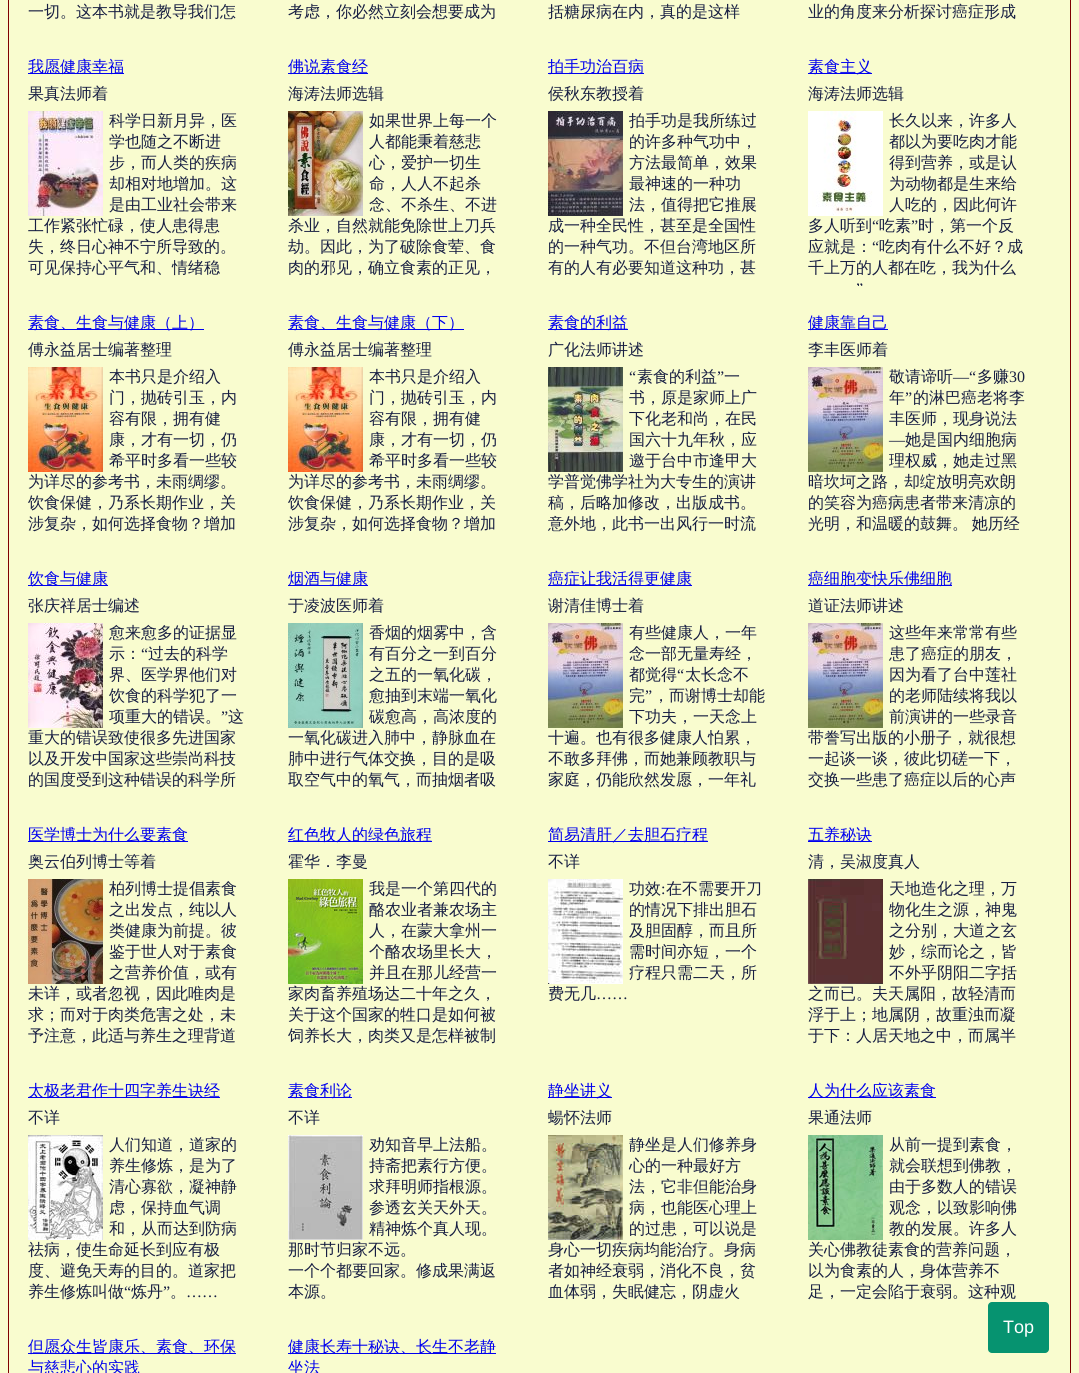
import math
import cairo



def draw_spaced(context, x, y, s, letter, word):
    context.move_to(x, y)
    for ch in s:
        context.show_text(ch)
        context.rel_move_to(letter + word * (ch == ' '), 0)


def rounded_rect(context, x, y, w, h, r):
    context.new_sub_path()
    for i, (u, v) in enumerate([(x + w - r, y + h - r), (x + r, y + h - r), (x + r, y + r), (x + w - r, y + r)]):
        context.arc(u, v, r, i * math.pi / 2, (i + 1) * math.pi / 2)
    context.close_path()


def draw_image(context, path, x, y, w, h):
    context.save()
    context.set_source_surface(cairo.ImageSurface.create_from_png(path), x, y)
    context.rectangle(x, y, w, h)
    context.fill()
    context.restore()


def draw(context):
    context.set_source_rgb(249 / 255, 252 / 255, 207 / 255)
    context.paint()
    context.rectangle(8.5, -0.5, 1062, 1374)
    context.set_source_rgb(128 / 255, 0, 0)
    context.set_line_width(1)
    context.stroke()
    context.set_source_rgb(0, 0, 238 / 255)
    context.rectangle(28, 73, 96, 1)
    context.fill()
    draw_image(context, "images/1.png", 28, 111, 75, 105)
    context.rectangle(288, 73, 80, 1)
    context.fill()
    draw_image(context, "images/2.png", 288, 111, 75, 105)
    context.rectangle(548, 73, 96, 1)
    context.fill()
    draw_image(context, "images/3.png", 548, 111, 75, 105)
    context.rectangle(808, 73, 64, 1)
    context.fill()
    draw_image(context, "images/4.png", 808, 111, 75, 105)
    context.rectangle(28, 329, 176, 1)
    context.fill()
    draw_image(context, "images/5.png", 28, 367, 75, 105)
    context.rectangle(288, 329, 176, 1)
    context.fill()
    draw_image(context, "images/5.png", 288, 367, 75, 105)
    context.rectangle(548, 329, 80, 1)
    context.fill()
    draw_image(context, "images/6.png", 548, 367, 75, 105)
    context.rectangle(808, 329, 80, 1)
    context.fill()
    draw_image(context, "images/7.png", 808, 367, 75, 105)
    context.rectangle(28, 585, 80, 1)
    context.fill()
    draw_image(context, "images/8.png", 28, 623, 75, 105)
    context.rectangle(288, 585, 80, 1)
    context.fill()
    draw_image(context, "images/9.png", 288, 623, 75, 105)
    context.rectangle(548, 585, 144, 1)
    context.fill()
    draw_image(context, "images/7.png", 548, 623, 75, 105)
    context.rectangle(808, 585, 144, 1)
    context.fill()
    draw_image(context, "images/7.png", 808, 623, 75, 105)
    context.rectangle(28, 841, 160, 1)
    context.fill()
    draw_image(context, "images/10.png", 28, 879, 75, 105)
    context.rectangle(288, 841, 144, 1)
    context.fill()
    draw_image(context, "images/11.png", 288, 879, 75, 105)
    context.rectangle(548, 841, 160, 1)
    context.fill()
    draw_image(context, "images/12.png", 548, 879, 75, 105)
    context.rectangle(808, 841, 64, 1)
    context.fill()
    draw_image(context, "images/13.png", 808, 879, 75, 105)
    context.rectangle(28, 1097, 192, 1)
    context.fill()
    draw_image(context, "images/14.png", 28, 1135, 75, 105)
    context.rectangle(288, 1097, 64, 1)
    context.fill()
    draw_image(context, "images/15.png", 288, 1135, 75, 105)
    context.rectangle(548, 1097, 64, 1)
    context.fill()
    draw_image(context, "images/16.png", 548, 1135, 75, 105)
    context.rectangle(808, 1097, 128, 1)
    context.fill()
    draw_image(context, "images/17.png", 808, 1135, 75, 105)
    context.rectangle(28, 1353, 208, 1)
    context.fill()
    context.rectangle(288, 1353, 208, 1)
    context.fill()
    context.set_source_rgb(6 / 255, 147 / 255, 112 / 255)
    rounded_rect(context, 988, 1302, 61, 51, 4)
    context.fill()
    context.select_font_face("WenQuanYi Zen Hei Medium")
    context.set_font_size(16)
    context.set_source_rgb(23 / 255, 30 / 255, 66 / 255)
    context.move_to(28, 17)
    context.show_text("一切。这本书就是教导我们怎")
    context.move_to(288, 17)
    context.show_text("考虑，你必然立刻会想要成为")
    context.move_to(548, 17)
    context.show_text("括糖尿病在内，真的是这样")
    context.move_to(808, 17)
    context.show_text("业的角度来分析探讨癌症形成")
    context.set_source_rgb(0, 0, 238 / 255)
    context.move_to(28, 72)
    context.show_text("我愿健康幸福")
    context.set_source_rgb(23 / 255, 30 / 255, 66 / 255)
    context.move_to(28, 99)
    context.show_text("果真法师着")
    context.move_to(109, 126)
    context.show_text("科学日新月异，医")
    context.move_to(109, 147)
    context.show_text("学也随之不断进")
    context.move_to(109, 168)
    context.show_text("步，而人类的疾病")
    context.move_to(109, 189)
    context.show_text("却相对地增加。这")
    context.move_to(109, 210)
    context.show_text("是由工业社会带来")
    context.move_to(28, 231)
    context.show_text("工作紧张忙碌，使人患得患")
    context.move_to(28, 252)
    context.show_text("失，终日心神不宁所导致的。")
    context.move_to(28, 273)
    context.show_text("可见保持心平气和、情绪稳")
    context.set_source_rgb(0, 0, 238 / 255)
    context.move_to(288, 72)
    context.show_text("佛说素食经")
    context.set_source_rgb(23 / 255, 30 / 255, 66 / 255)
    context.move_to(288, 99)
    context.show_text("海涛法师选辑")
    context.move_to(369, 126)
    context.show_text("如果世界上每一个")
    context.move_to(369, 147)
    context.show_text("人都能秉着慈悲")
    context.move_to(369, 168)
    context.show_text("心，爱护一切生")
    context.move_to(369, 189)
    context.show_text("命，人人不起杀")
    context.move_to(369, 210)
    context.show_text("念、不杀生、不进")
    context.move_to(288, 231)
    context.show_text("杀业，自然就能免除世上刀兵")
    context.move_to(288, 252)
    context.show_text("劫。因此，为了破除食荤、食")
    context.move_to(288, 273)
    context.show_text("肉的邪见，确立食素的正见，")
    context.set_source_rgb(0, 0, 238 / 255)
    context.move_to(548, 72)
    context.show_text("拍手功治百病")
    context.set_source_rgb(23 / 255, 30 / 255, 66 / 255)
    context.move_to(548, 99)
    context.show_text("侯秋东教授着")
    context.move_to(629, 126)
    context.show_text("拍手功是我所练过")
    context.move_to(629, 147)
    context.show_text("的许多种气功中，")
    context.move_to(629, 168)
    context.show_text("方法最简单，效果")
    context.move_to(629, 189)
    context.show_text("最神速的一种功")
    context.move_to(629, 210)
    context.show_text("法，值得把它推展")
    context.move_to(548, 231)
    context.show_text("成一种全民性，甚至是全国性")
    context.move_to(548, 252)
    context.show_text("的一种气功。不但台湾地区所")
    context.move_to(548, 273)
    context.show_text("有的人有必要知道这种功，甚")
    context.set_source_rgb(0, 0, 238 / 255)
    context.move_to(808, 72)
    context.show_text("素食主义")
    context.set_source_rgb(23 / 255, 30 / 255, 66 / 255)
    context.move_to(808, 99)
    context.show_text("海涛法师选辑")
    context.move_to(889, 126)
    context.show_text("长久以来，许多人")
    context.move_to(889, 147)
    context.show_text("都以为要吃肉才能")
    context.move_to(889, 168)
    context.show_text("得到营养，或是认")
    context.move_to(889, 189)
    context.show_text("为动物都是生来给")
    context.move_to(889, 210)
    context.show_text("人吃的，因此何许")
    context.move_to(808, 231)
    context.show_text("多人听到")
    context.select_font_face("Liberation Serif")
    context.move_to(872, 231)
    context.show_text("“")
    context.select_font_face("WenQuanYi Zen Hei Medium")
    context.move_to(879, 231)
    context.show_text("吃素")
    context.select_font_face("Liberation Serif")
    context.move_to(911, 231)
    context.show_text("”")
    context.select_font_face("WenQuanYi Zen Hei Medium")
    context.move_to(918, 231)
    context.show_text("时，第一个反")
    context.move_to(808, 252)
    context.show_text("应就是：")
    context.select_font_face("Liberation Serif")
    context.move_to(872, 252)
    context.show_text("“")
    context.select_font_face("WenQuanYi Zen Hei Medium")
    context.move_to(879, 252)
    context.show_text("吃肉有什么不好？成")
    context.move_to(808, 273)
    context.show_text("千上万的人都在吃，我为什么")
    context.save()
    context.rectangle(797, 46, 244, 240)
    context.clip()
    context.select_font_face("Liberation Serif")
    context.move_to(856, 294)
    context.show_text("”")
    context.restore()
    context.set_source_rgb(0, 0, 238 / 255)
    context.move_to(28, 328)
    context.show_text("素食、生食与健康（上）")
    context.set_source_rgb(23 / 255, 30 / 255, 66 / 255)
    context.move_to(28, 355)
    context.show_text("傅永益居士编著整理")
    context.move_to(109, 382)
    context.show_text("本书只是介绍入")
    context.move_to(109, 403)
    context.show_text("门，抛砖引玉，内")
    context.move_to(109, 424)
    context.show_text("容有限，拥有健")
    context.move_to(109, 445)
    context.show_text("康，才有一切，仍")
    context.move_to(109, 466)
    context.show_text("希平时多看一些较")
    context.move_to(28, 487)
    context.show_text("为详尽的参考书，未雨绸缪。")
    context.move_to(28, 508)
    context.show_text("饮食保健，乃系长期作业，关")
    context.move_to(28, 529)
    context.show_text("涉复杂，如何选择食物？增加")
    context.set_source_rgb(0, 0, 238 / 255)
    context.move_to(288, 328)
    context.show_text("素食、生食与健康（下）")
    context.set_source_rgb(23 / 255, 30 / 255, 66 / 255)
    context.move_to(288, 355)
    context.show_text("傅永益居士编著整理")
    context.move_to(369, 382)
    context.show_text("本书只是介绍入")
    context.move_to(369, 403)
    context.show_text("门，抛砖引玉，内")
    context.move_to(369, 424)
    context.show_text("容有限，拥有健")
    context.move_to(369, 445)
    context.show_text("康，才有一切，仍")
    context.move_to(369, 466)
    context.show_text("希平时多看一些较")
    context.move_to(288, 487)
    context.show_text("为详尽的参考书，未雨绸缪。")
    context.move_to(288, 508)
    context.show_text("饮食保健，乃系长期作业，关")
    context.move_to(288, 529)
    context.show_text("涉复杂，如何选择食物？增加")
    context.set_source_rgb(0, 0, 238 / 255)
    context.move_to(548, 328)
    context.show_text("素食的利益")
    context.set_source_rgb(23 / 255, 30 / 255, 66 / 255)
    context.move_to(548, 355)
    context.show_text("广化法师讲述")
    context.select_font_face("Liberation Serif")
    context.move_to(629, 382)
    context.show_text("“")
    context.select_font_face("WenQuanYi Zen Hei Medium")
    context.move_to(637, 382)
    context.show_text("素食的利益")
    context.select_font_face("Liberation Serif")
    context.move_to(717, 382)
    context.show_text("”")
    context.select_font_face("WenQuanYi Zen Hei Medium")
    context.move_to(724, 382)
    context.show_text("一")
    context.move_to(629, 403)
    context.show_text("书，原是家师上广")
    context.move_to(629, 424)
    context.show_text("下化老和尚，在民")
    context.move_to(629, 445)
    context.show_text("国六十九年秋，应")
    context.move_to(629, 466)
    context.show_text("邀于台中市逢甲大")
    context.move_to(548, 487)
    context.show_text("学普觉佛学社为大专生的演讲")
    context.move_to(548, 508)
    context.show_text("稿，后略加修改，出版成书。")
    context.move_to(548, 529)
    context.show_text("意外地，此书一出风行一时流")
    context.set_source_rgb(0, 0, 238 / 255)
    context.move_to(808, 328)
    context.show_text("健康靠自己")
    context.set_source_rgb(23 / 255, 30 / 255, 66 / 255)
    context.move_to(808, 355)
    context.show_text("李丰医师着")
    context.move_to(889, 382)
    context.show_text("敬请谛听")
    context.select_font_face("Liberation Serif")
    context.move_to(953, 382)
    context.show_text("—“")
    context.select_font_face("WenQuanYi Zen Hei Medium")
    context.move_to(977, 382)
    context.show_text("多赚")
    context.select_font_face("Liberation Serif")
    context.move_to(1009, 382)
    context.show_text("30")
    context.select_font_face("WenQuanYi Zen Hei Medium")
    context.move_to(889, 403)
    context.show_text("年")
    context.select_font_face("Liberation Serif")
    context.move_to(905, 403)
    context.show_text("”")
    context.select_font_face("WenQuanYi Zen Hei Medium")
    context.move_to(913, 403)
    context.show_text("的淋巴癌老将李")
    context.move_to(889, 424)
    context.show_text("丰医师，现身说法")
    context.select_font_face("Liberation Serif")
    context.move_to(889, 445)
    context.show_text("—")
    context.select_font_face("WenQuanYi Zen Hei Medium")
    context.move_to(905, 445)
    context.show_text("她是国内细胞病")
    context.move_to(889, 466)
    context.show_text("理权威，她走过黑")
    context.move_to(808, 487)
    context.show_text("暗坎坷之路，却绽放明亮欢朗")
    context.move_to(808, 508)
    context.show_text("的笑容为癌病患者带来清凉的")
    draw_spaced(context, 808, 529, "光明，和温暖的鼓舞。 她历经", 0, -1)
    context.set_source_rgb(0, 0, 238 / 255)
    context.move_to(28, 584)
    context.show_text("饮食与健康")
    context.set_source_rgb(23 / 255, 30 / 255, 66 / 255)
    context.move_to(28, 611)
    context.show_text("张庆祥居士编述")
    context.move_to(109, 638)
    context.show_text("愈来愈多的证据显")
    context.move_to(109, 659)
    context.show_text("示：")
    context.select_font_face("Liberation Serif")
    context.move_to(141, 659)
    context.show_text("“")
    context.select_font_face("WenQuanYi Zen Hei Medium")
    context.move_to(148, 659)
    context.show_text("过去的科学")
    context.move_to(109, 680)
    context.show_text("界、医学界他们对")
    context.move_to(109, 701)
    context.show_text("饮食的科学犯了一")
    context.move_to(109, 722)
    context.show_text("项重大的错误。")
    context.select_font_face("Liberation Serif")
    context.move_to(221, 722)
    context.show_text("”")
    context.select_font_face("WenQuanYi Zen Hei Medium")
    context.move_to(228, 722)
    context.show_text("这")
    context.move_to(28, 743)
    context.show_text("重大的错误致使很多先进国家")
    context.move_to(28, 764)
    context.show_text("以及开发中国家这些崇尚科技")
    context.move_to(28, 785)
    context.show_text("的国度受到这种错误的科学所")
    context.set_source_rgb(0, 0, 238 / 255)
    context.move_to(288, 584)
    context.show_text("烟酒与健康")
    context.set_source_rgb(23 / 255, 30 / 255, 66 / 255)
    context.move_to(288, 611)
    context.show_text("于凌波医师着")
    context.move_to(369, 638)
    context.show_text("香烟的烟雾中，含")
    context.move_to(369, 659)
    context.show_text("有百分之一到百分")
    context.move_to(369, 680)
    context.show_text("之五的一氧化碳，")
    context.move_to(369, 701)
    context.show_text("愈抽到末端一氧化")
    context.move_to(369, 722)
    context.show_text("碳愈高，高浓度的")
    context.move_to(288, 743)
    context.show_text("一氧化碳进入肺中，静脉血在")
    context.move_to(288, 764)
    context.show_text("肺中进行气体交换，目的是吸")
    context.move_to(288, 785)
    context.show_text("取空气中的氧气，而抽烟者吸")
    context.set_source_rgb(0, 0, 238 / 255)
    context.move_to(548, 584)
    context.show_text("癌症让我活得更健康")
    context.set_source_rgb(23 / 255, 30 / 255, 66 / 255)
    context.move_to(548, 611)
    context.show_text("谢清佳博士着")
    context.move_to(629, 638)
    context.show_text("有些健康人，一年")
    context.move_to(629, 659)
    context.show_text("念一部无量寿经，")
    context.move_to(629, 680)
    context.show_text("都觉得")
    context.select_font_face("Liberation Serif")
    context.move_to(677, 680)
    context.show_text("“")
    context.select_font_face("WenQuanYi Zen Hei Medium")
    context.move_to(685, 680)
    context.show_text("太长念不")
    context.move_to(629, 701)
    context.show_text("完")
    context.select_font_face("Liberation Serif")
    context.move_to(645, 701)
    context.show_text("”")
    context.select_font_face("WenQuanYi Zen Hei Medium")
    context.move_to(653, 701)
    context.show_text("，而谢博士却能")
    context.move_to(629, 722)
    context.show_text("下功夫，一天念上")
    context.move_to(548, 743)
    context.show_text("十遍。也有很多健康人怕累，")
    context.move_to(548, 764)
    context.show_text("不敢多拜佛，而她兼顾教职与")
    context.move_to(548, 785)
    context.show_text("家庭，仍能欣然发愿，一年礼")
    context.set_source_rgb(0, 0, 238 / 255)
    context.move_to(808, 584)
    context.show_text("癌细胞变快乐佛细胞")
    context.set_source_rgb(23 / 255, 30 / 255, 66 / 255)
    context.move_to(808, 611)
    context.show_text("道证法师讲述")
    context.move_to(889, 638)
    context.show_text("这些年来常常有些")
    context.move_to(889, 659)
    context.show_text("患了癌症的朋友，")
    context.move_to(889, 680)
    context.show_text("因为看了台中莲社")
    context.move_to(889, 701)
    context.show_text("的老师陆续将我以")
    context.move_to(889, 722)
    context.show_text("前演讲的一些录音")
    context.move_to(808, 743)
    context.show_text("带誊写出版的小册子，就很想")
    context.move_to(808, 764)
    context.show_text("一起谈一谈，彼此切磋一下，")
    context.move_to(808, 785)
    context.show_text("交换一些患了癌症以后的心声")
    context.set_source_rgb(0, 0, 238 / 255)
    context.move_to(28, 840)
    context.show_text("医学博士为什么要素食")
    context.set_source_rgb(23 / 255, 30 / 255, 66 / 255)
    context.move_to(28, 867)
    context.show_text("奥云伯列博士等着")
    context.move_to(109, 894)
    context.show_text("柏列博士提倡素食")
    context.move_to(109, 915)
    context.show_text("之出发点，纯以人")
    context.move_to(109, 936)
    context.show_text("类健康为前提。彼")
    context.move_to(109, 957)
    context.show_text("鉴于世人对于素食")
    context.move_to(109, 978)
    context.show_text("之营养价值，或有")
    context.move_to(28, 999)
    context.show_text("未详，或者忽视，因此唯肉是")
    context.move_to(28, 1020)
    context.show_text("求；而对于肉类危害之处，未")
    context.move_to(28, 1041)
    context.show_text("予注意，此适与养生之理背道")
    context.set_source_rgb(0, 0, 238 / 255)
    context.move_to(288, 840)
    context.show_text("红色牧人的绿色旅程")
    context.set_source_rgb(23 / 255, 30 / 255, 66 / 255)
    context.move_to(288, 867)
    context.show_text("霍华．李曼")
    context.move_to(369, 894)
    context.show_text("我是一个第四代的")
    context.move_to(369, 915)
    context.show_text("酪农业者兼农场主")
    context.move_to(369, 936)
    context.show_text("人，在蒙大拿州一")
    context.move_to(369, 957)
    context.show_text("个酪农场里长大，")
    context.move_to(369, 978)
    context.show_text("并且在那儿经营一")
    context.move_to(288, 999)
    context.show_text("家肉畜养殖场达二十年之久，")
    context.move_to(288, 1020)
    context.show_text("关于这个国家的牲口是如何被")
    context.move_to(288, 1041)
    context.show_text("饲养长大，肉类又是怎样被制")
    context.set_source_rgb(0, 0, 238 / 255)
    context.move_to(548, 840)
    context.show_text("简易清肝／去胆石疗程")
    context.set_source_rgb(23 / 255, 30 / 255, 66 / 255)
    context.move_to(548, 867)
    context.show_text("不详")
    context.move_to(629, 894)
    context.show_text("功效")
    context.select_font_face("Liberation Serif")
    context.move_to(661, 894)
    context.show_text(":")
    context.select_font_face("WenQuanYi Zen Hei Medium")
    context.move_to(666, 894)
    context.show_text("在不需要开刀")
    context.move_to(629, 915)
    context.show_text("的情况下排出胆石")
    context.move_to(629, 936)
    context.show_text("及胆固醇，而且所")
    context.move_to(629, 957)
    context.show_text("需时间亦短，一个")
    context.move_to(629, 978)
    context.show_text("疗程只需二天，所")
    context.move_to(548, 999)
    context.show_text("费无几")
    context.select_font_face("Liberation Serif")
    context.move_to(596, 999)
    context.show_text("……")
    context.select_font_face("WenQuanYi Zen Hei Medium")
    context.set_source_rgb(0, 0, 238 / 255)
    context.move_to(808, 840)
    context.show_text("五养秘诀")
    context.set_source_rgb(23 / 255, 30 / 255, 66 / 255)
    context.move_to(808, 867)
    context.show_text("清，吴淑度真人")
    context.move_to(889, 894)
    context.show_text("天地造化之理，万")
    context.move_to(889, 915)
    context.show_text("物化生之源，神鬼")
    context.move_to(889, 936)
    context.show_text("之分别，大道之玄")
    context.move_to(889, 957)
    context.show_text("妙，综而论之，皆")
    context.move_to(889, 978)
    context.show_text("不外乎阴阳二字括")
    context.move_to(808, 999)
    context.show_text("之而已。夫天属阳，故轻清而")
    context.move_to(808, 1020)
    context.show_text("浮于上；地属阴，故重浊而凝")
    context.move_to(808, 1041)
    context.show_text("于下：人居天地之中，而属半")
    context.set_source_rgb(0, 0, 238 / 255)
    context.move_to(28, 1096)
    context.show_text("太极老君作十四字养生诀经")
    context.set_source_rgb(23 / 255, 30 / 255, 66 / 255)
    context.move_to(28, 1123)
    context.show_text("不详")
    context.move_to(109, 1150)
    context.show_text("人们知道，道家的")
    context.move_to(109, 1171)
    context.show_text("养生修炼，是为了")
    context.move_to(109, 1192)
    context.show_text("清心寡欲，凝神静")
    context.move_to(109, 1213)
    context.show_text("虑，保持血气调")
    context.move_to(109, 1234)
    context.show_text("和，从而达到防病")
    context.move_to(28, 1255)
    context.show_text("祛病，使生命延长到应有极")
    context.move_to(28, 1276)
    context.show_text("度、避免天寿的目的。道家把")
    context.move_to(28, 1297)
    context.show_text("养生修炼叫做")
    context.select_font_face("Liberation Serif")
    context.move_to(124, 1297)
    context.show_text("“")
    context.select_font_face("WenQuanYi Zen Hei Medium")
    context.move_to(131, 1297)
    context.show_text("炼丹")
    context.select_font_face("Liberation Serif")
    context.move_to(163, 1297)
    context.show_text("”")
    context.select_font_face("WenQuanYi Zen Hei Medium")
    context.move_to(170, 1297)
    context.show_text("。")
    context.select_font_face("Liberation Serif")
    context.move_to(186, 1297)
    context.show_text("……")
    context.select_font_face("WenQuanYi Zen Hei Medium")
    context.set_source_rgb(0, 0, 238 / 255)
    context.move_to(288, 1096)
    context.show_text("素食利论")
    context.set_source_rgb(23 / 255, 30 / 255, 66 / 255)
    context.move_to(288, 1123)
    context.show_text("不详")
    context.move_to(369, 1150)
    context.show_text("劝知音早上法船。")
    context.move_to(369, 1171)
    context.show_text("持斋把素行方便。")
    context.move_to(369, 1192)
    context.show_text("求拜明师指根源。")
    context.move_to(369, 1213)
    context.show_text("参透玄关天外天。")
    context.move_to(369, 1234)
    context.show_text("精神炼个真人现。")
    context.move_to(288, 1255)
    context.show_text("那时节归家不远。")
    context.move_to(288, 1276)
    context.show_text("一个个都要回家。修成果满返")
    context.move_to(288, 1297)
    context.show_text("本源。")
    context.set_source_rgb(0, 0, 238 / 255)
    context.move_to(548, 1096)
    context.show_text("静坐讲义")
    context.set_source_rgb(23 / 255, 30 / 255, 66 / 255)
    context.move_to(548, 1123)
    context.show_text("蝪怀法师")
    context.move_to(629, 1150)
    context.show_text("静坐是人们修养身")
    context.move_to(629, 1171)
    context.show_text("心的一种最好方")
    context.move_to(629, 1192)
    context.show_text("法，它非但能治身")
    context.move_to(629, 1213)
    context.show_text("病，也能医心理上")
    context.move_to(629, 1234)
    context.show_text("的过患，可以说是")
    context.move_to(548, 1255)
    context.show_text("身心一切疾病均能治疗。身病")
    context.move_to(548, 1276)
    context.show_text("者如神经衰弱，消化不良，贫")
    context.move_to(548, 1297)
    context.show_text("血体弱，失眠健忘，阴虚火")
    context.set_source_rgb(0, 0, 238 / 255)
    context.move_to(808, 1096)
    context.show_text("人为什么应该素食")
    context.set_source_rgb(23 / 255, 30 / 255, 66 / 255)
    context.move_to(808, 1123)
    context.show_text("果通法师")
    context.move_to(889, 1150)
    context.show_text("从前一提到素食，")
    context.move_to(889, 1171)
    context.show_text("就会联想到佛教，")
    context.move_to(889, 1192)
    context.show_text("由于多数人的错误")
    context.move_to(889, 1213)
    context.show_text("观念，以致影响佛")
    context.move_to(889, 1234)
    context.show_text("教的发展。许多人")
    context.move_to(808, 1255)
    context.show_text("关心佛教徒素食的营养问题，")
    context.move_to(808, 1276)
    context.show_text("以为食素的人，身体营养不")
    context.move_to(808, 1297)
    context.show_text("足，一定会陷于衰弱。这种观")
    context.set_source_rgb(0, 0, 238 / 255)
    context.move_to(28, 1352)
    context.show_text("但愿众生皆康乐、素食、环保")
    context.move_to(28, 1373)
    context.show_text("与慈悲心的实践")
    context.move_to(288, 1352)
    context.show_text("健康长寿十秘诀、长生不老静")
    context.move_to(288, 1373)
    context.show_text("坐法")
    context.select_font_face("Liberation Sans")
    context.set_font_size(18)
    context.set_source_rgb(1, 1, 1)
    context.move_to(1003, 1333)
    context.show_text("Top")


surface = cairo.ImageSurface(cairo.Format.RGB24, 1079, 1373)
context = cairo.Context(surface)
options = cairo.FontOptions()
options.set_hint_metrics(cairo.HintMetrics.OFF)
options.set_hint_style(cairo.HintStyle.NONE)
context.set_font_options(options)
context.set_miter_limit(4)
draw(context)
surface.write_to_png("out.png")
